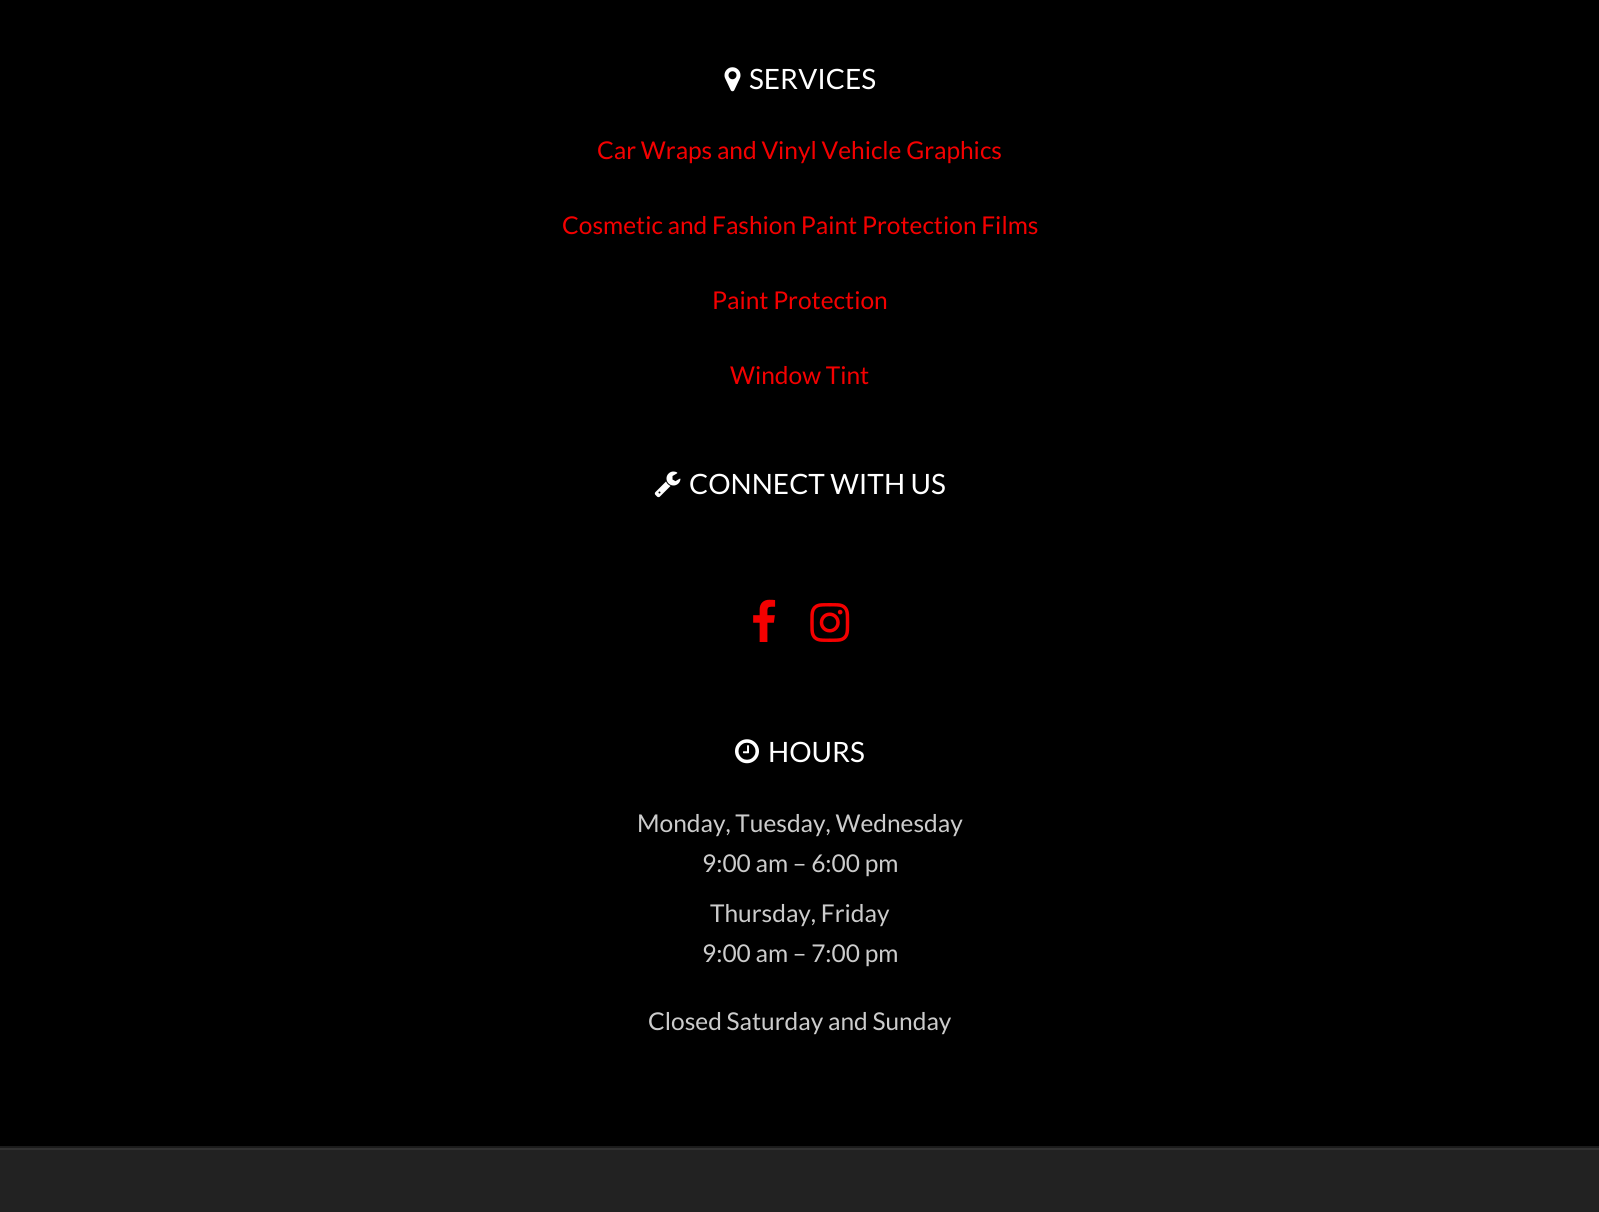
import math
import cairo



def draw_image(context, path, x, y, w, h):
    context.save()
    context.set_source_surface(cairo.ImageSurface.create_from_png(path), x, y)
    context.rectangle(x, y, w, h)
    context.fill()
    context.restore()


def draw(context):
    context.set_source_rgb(0, 0, 0)
    context.paint()
    draw_image(context, "images/1.png", 724, 67, 17, 25)
    draw_image(context, "images/2.png", 654, 471, 27, 27)
    draw_image(context, "images/3.png", 753, 599, 23, 43)
    draw_image(context, "images/4.png", 810, 603, 40, 39)
    draw_image(context, "images/5.png", 735, 739, 24, 25)
    context.set_source_rgb(34 / 255, 34 / 255, 34 / 255)
    context.rectangle(0, 1150, 1599, 62)
    context.fill()
    context.set_source_rgb(49 / 255, 49 / 255, 49 / 255)
    context.rectangle(0, 1148, 1599, 2)
    context.fill()
    context.set_source_rgb(27 / 255, 27 / 255, 27 / 255)
    context.rectangle(0, 1146, 1599, 2)
    context.fill()
    context.select_font_face("Lato")
    context.set_font_size(28)
    context.set_source_rgb(1, 1, 1)
    context.move_to(749, 89)
    context.show_text("SERVICES")
    context.set_font_size(24.5)
    context.set_source_rgb(244 / 255, 0, 0)
    context.move_to(597, 159)
    context.show_text("Car Wraps and Vinyl Vehicle Graphics")
    context.move_to(562, 234)
    context.show_text("Cosmetic and Fashion Paint Protection Films")
    context.move_to(712, 309)
    context.show_text("Paint Protection")
    context.move_to(730, 384)
    context.show_text("Window Tint")
    context.set_font_size(28)
    context.set_source_rgb(1, 1, 1)
    context.move_to(689, 494)
    context.show_text("CONNECT WITH US")
    context.move_to(768, 762)
    context.show_text("HOURS")
    context.set_font_size(24.5)
    context.set_source_rgb(204 / 255, 204 / 255, 204 / 255)
    context.move_to(637, 832)
    context.show_text("Monday, Tuesday, Wednesday")
    context.move_to(702, 872)
    context.show_text("9:00 am – 6:00 pm")
    context.move_to(710, 922)
    context.show_text("Thursday, Friday")
    context.move_to(702, 962)
    context.show_text("9:00 am – 7:00 pm")
    context.move_to(648, 1030)
    context.show_text("Closed Saturday and Sunday")


surface = cairo.ImageSurface(cairo.Format.RGB24, 1599, 1212)
context = cairo.Context(surface)
options = cairo.FontOptions()
options.set_hint_metrics(cairo.HintMetrics.OFF)
options.set_hint_style(cairo.HintStyle.NONE)
context.set_font_options(options)
context.set_miter_limit(4)
draw(context)
surface.write_to_png("out.png")
